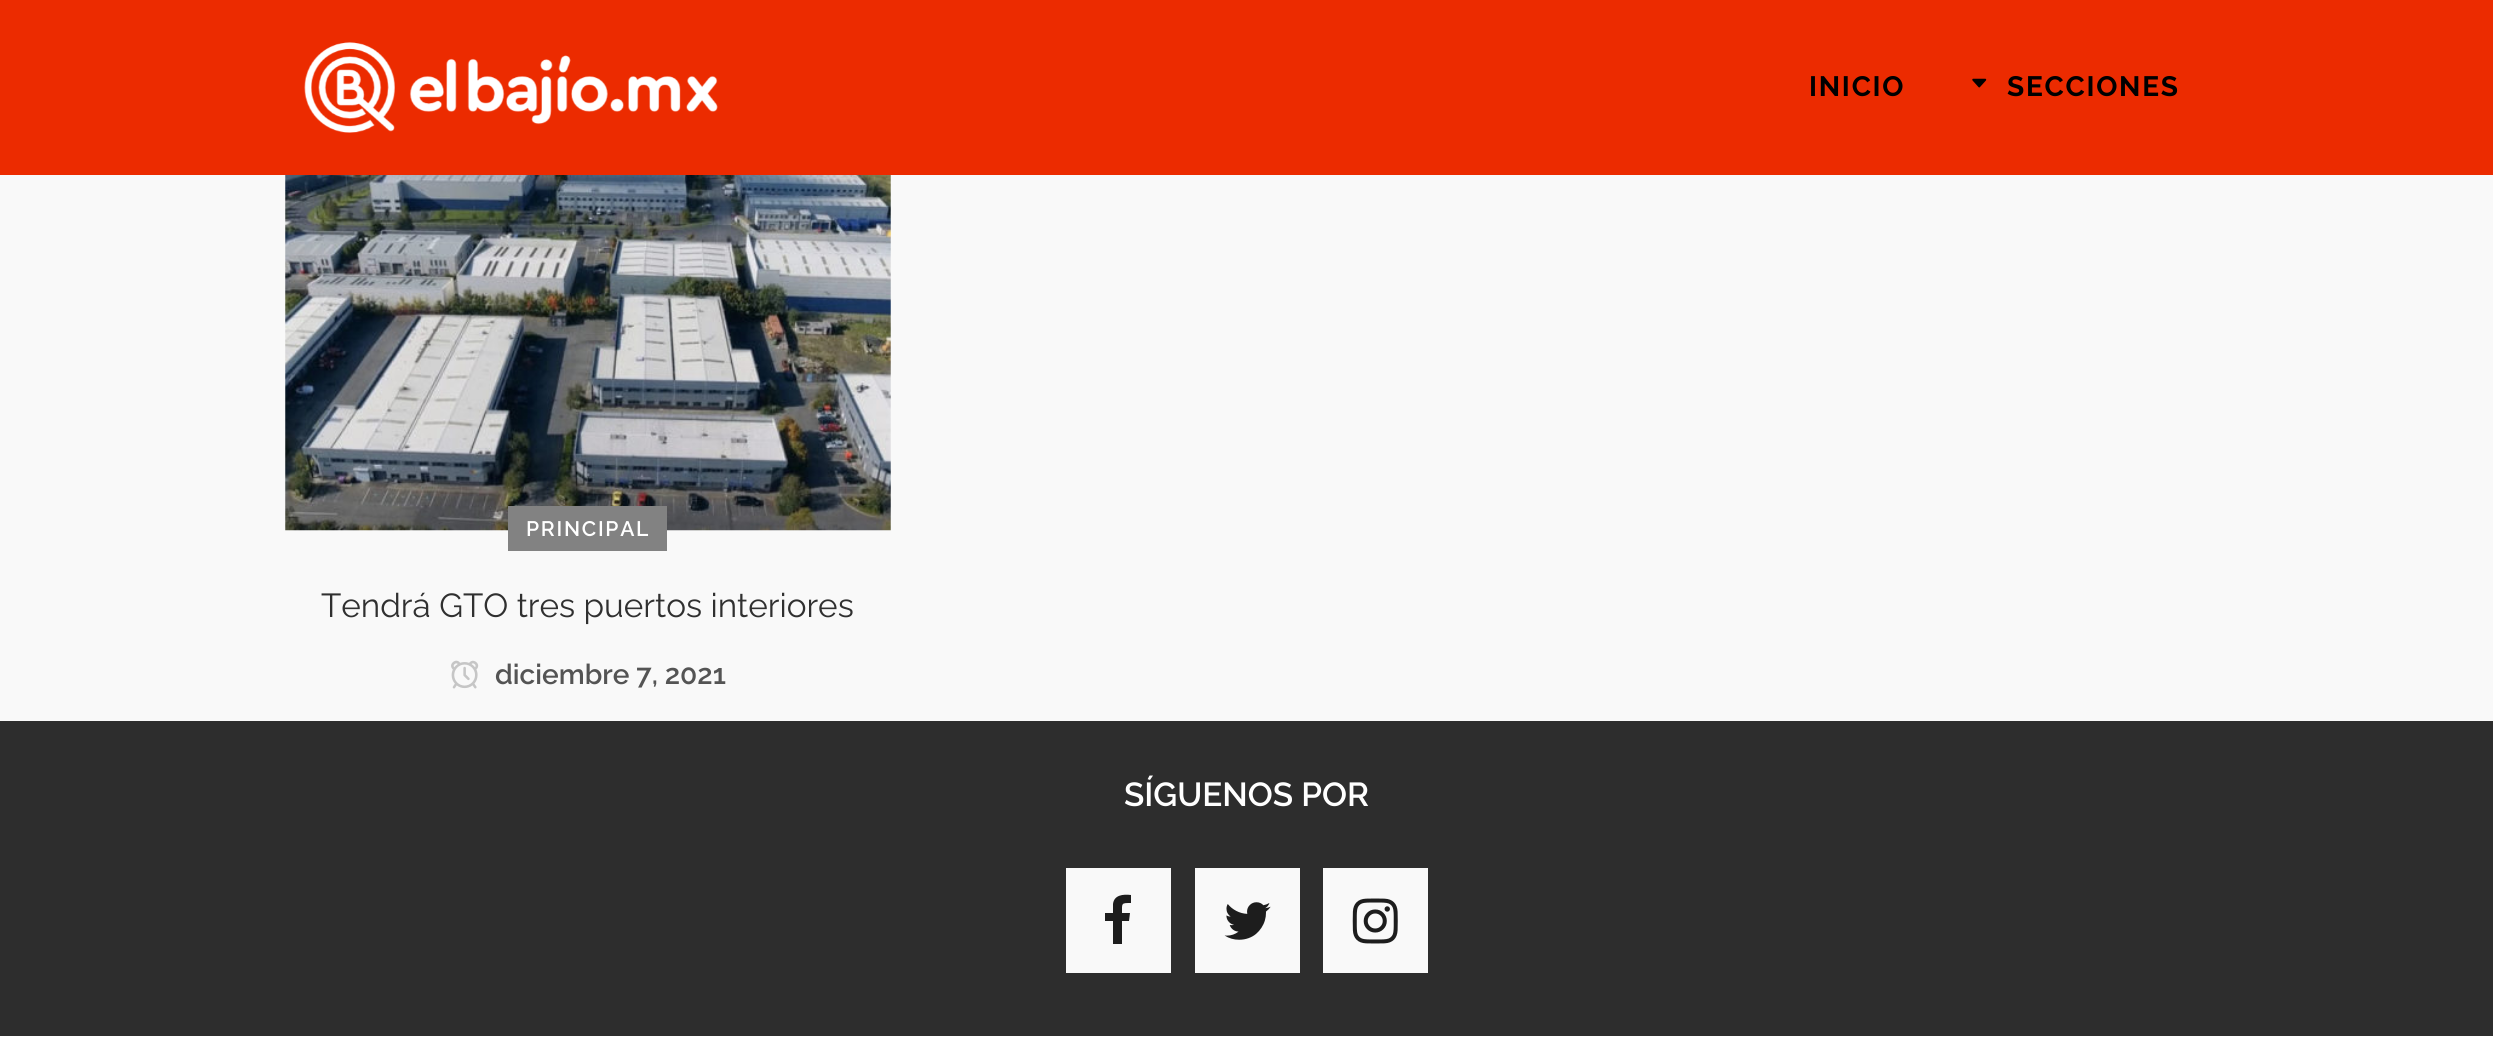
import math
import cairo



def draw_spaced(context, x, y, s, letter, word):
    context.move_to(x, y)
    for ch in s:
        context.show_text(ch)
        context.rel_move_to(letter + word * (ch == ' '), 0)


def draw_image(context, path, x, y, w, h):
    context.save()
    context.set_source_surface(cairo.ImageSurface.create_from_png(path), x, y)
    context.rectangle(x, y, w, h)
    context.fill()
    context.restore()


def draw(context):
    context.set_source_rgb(1, 1, 1)
    context.paint()
    context.set_source_rgb(236 / 255, 43 / 255, 0)
    context.rectangle(0, 0, 2493, 175)
    context.fill()
    draw_image(context, "images/1.png", 304, 42, 414, 91)
    draw_image(context, "images/2.png", 1972, 78, 15, 10)
    context.set_source_rgb(249 / 255, 249 / 255, 249 / 255)
    context.rectangle(0, 175, 2493, 546)
    context.fill()
    draw_image(context, "images/3.png", 285, 175, 606, 356)
    context.set_source_rgb(130 / 255, 130 / 255, 130 / 255)
    context.rectangle(508, 506, 159, 45)
    context.fill()
    draw_image(context, "images/4.png", 451, 660, 28, 29)
    context.set_source_rgb(45 / 255, 45 / 255, 45 / 255)
    context.rectangle(0, 721, 2493, 315)
    context.fill()
    context.set_source_rgb(249 / 255, 249 / 255, 249 / 255)
    context.rectangle(1066, 868, 105, 105)
    context.fill()
    context.set_source_rgb(29 / 255, 29 / 255, 29 / 255)
    context.new_path()
    context.move_to(1131, 895)
    context.line_to(1131, 903)
    context.curve_to(1121, 903, 1122, 903, 1122, 913)
    context.line_to(1130, 913)
    context.line_to(1129, 921)
    context.line_to(1122, 921)
    context.line_to(1122, 944)
    context.line_to(1113, 944)
    context.line_to(1113, 921)
    context.line_to(1105, 921)
    context.line_to(1105, 913)
    context.line_to(1113, 913)
    context.line_to(1113, 904)
    context.curve_to(1114, 895, 1123, 894, 1131, 895)
    context.close_path()
    context.fill()
    context.set_source_rgb(249 / 255, 249 / 255, 249 / 255)
    context.rectangle(1195, 868, 105, 105)
    context.fill()
    draw_image(context, "images/5.png", 1224, 902, 47, 38)
    context.rectangle(1323, 868, 105, 105)
    context.fill()
    draw_image(context, "images/6.png", 1352, 898, 46, 46)
    context.select_font_face("Raleway", cairo.FontSlant.NORMAL, cairo.FontWeight.BOLD)
    context.set_font_size(28)
    context.set_source_rgb(0, 0, 0)
    draw_spaced(context, 1809, 96, "INICIO", 1.75, 0)
    draw_spaced(context, 2007, 96, "SECCIONES", 1.75, 0)
    context.select_font_face("Raleway SemiBold")
    context.set_font_size(21)
    context.set_source_rgb(1, 1, 1)
    draw_spaced(context, 526, 536, "PRINCIPAL", 1.75, 0)
    context.select_font_face("Raleway")
    context.set_font_size(33.25)
    context.set_source_rgb(48 / 255, 48 / 255, 48 / 255)
    context.move_to(321, 617)
    context.show_text("Tendrá GTO tres puertos interiores")
    context.select_font_face("Raleway SemiBold")
    context.set_font_size(28)
    context.set_source_rgb(84 / 255, 84 / 255, 84 / 255)
    context.move_to(495, 684)
    context.show_text("diciembre 7, 2021")
    context.set_font_size(33.25)
    context.set_source_rgb(1, 1, 1)
    context.move_to(1124, 806)
    context.show_text("SÍGUENOS POR")


surface = cairo.ImageSurface(cairo.Format.RGB24, 2493, 1057)
context = cairo.Context(surface)
options = cairo.FontOptions()
options.set_hint_metrics(cairo.HintMetrics.OFF)
options.set_hint_style(cairo.HintStyle.NONE)
context.set_font_options(options)
context.set_miter_limit(4)
draw(context)
surface.write_to_png("out.png")
